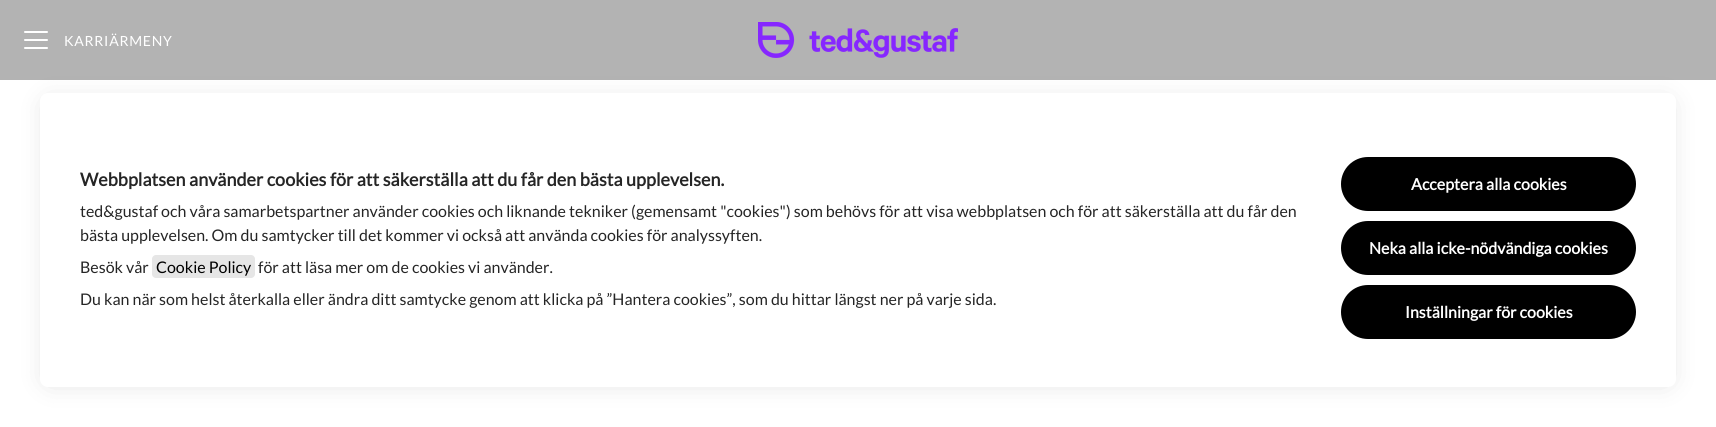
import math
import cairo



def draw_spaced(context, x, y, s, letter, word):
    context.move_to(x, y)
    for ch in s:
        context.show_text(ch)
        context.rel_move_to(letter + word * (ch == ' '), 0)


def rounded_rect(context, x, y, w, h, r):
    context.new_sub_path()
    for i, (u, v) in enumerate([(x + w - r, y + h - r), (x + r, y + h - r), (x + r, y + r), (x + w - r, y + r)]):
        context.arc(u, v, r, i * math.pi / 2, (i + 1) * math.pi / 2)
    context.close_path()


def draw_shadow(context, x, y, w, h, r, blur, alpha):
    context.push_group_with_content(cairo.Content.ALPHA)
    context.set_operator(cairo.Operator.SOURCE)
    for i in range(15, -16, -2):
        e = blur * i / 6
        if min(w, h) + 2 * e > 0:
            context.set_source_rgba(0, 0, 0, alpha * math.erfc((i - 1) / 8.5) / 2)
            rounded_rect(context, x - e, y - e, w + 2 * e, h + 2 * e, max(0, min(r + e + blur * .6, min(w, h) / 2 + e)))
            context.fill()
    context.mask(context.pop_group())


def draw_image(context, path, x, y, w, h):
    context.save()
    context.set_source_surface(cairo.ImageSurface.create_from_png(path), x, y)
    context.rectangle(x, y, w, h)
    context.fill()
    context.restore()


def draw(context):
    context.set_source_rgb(1, 1, 1)
    context.paint()
    context.set_source_rgb(179 / 255, 179 / 255, 179 / 255)
    context.rectangle(0, 0, 1716, 80)
    context.fill()
    context.set_source_rgb(1, 1, 1)
    rounded_rect(context, 24, 31, 24, 2, 1)
    context.fill()
    rounded_rect(context, 24, 39, 24, 2, 1)
    context.fill()
    rounded_rect(context, 24, 47, 24, 2, 1)
    context.fill()
    draw_image(context, "images/1.png", 758, 22, 200, 36)
    context.set_source_rgb(0, 0, 0)
    draw_shadow(context, 50, 105, 1616, 274, 0, 13.5, 0.18)
    context.set_source_rgb(1, 1, 1)
    rounded_rect(context, 40, 93, 1636, 294, 8)
    context.fill()
    context.set_source_rgb(230 / 255, 230 / 255, 230 / 255)
    rounded_rect(context, 152, 255, 103, 23, 4)
    context.fill()
    context.set_source_rgb(0, 0, 0)
    rounded_rect(context, 1341, 157, 295, 54, 27)
    context.fill()
    rounded_rect(context, 1341, 221, 295, 54, 27)
    context.fill()
    rounded_rect(context, 1341, 285, 295, 54, 27)
    context.fill()
    context.select_font_face("Lato")
    context.set_font_size(14)
    context.set_source_rgb(1, 1, 1)
    draw_spaced(context, 64, 46, "KARRIÄRMENY", 0.75, 0)
    context.select_font_face("Lato", cairo.FontSlant.NORMAL, cairo.FontWeight.BOLD)
    context.set_font_size(18)
    context.set_source_rgb(37 / 255, 37 / 255, 37 / 255)
    context.move_to(80, 186)
    context.show_text("Webbplatsen använder cookies för att säkerställa att du får den bästa upplevelsen.")
    context.select_font_face("Lato")
    context.set_font_size(16)
    context.move_to(80, 217)
    context.show_text("ted&gustaf och våra samarbetspartner använder cookies och liknande tekniker (gemensamt \"cookies\") som behövs för att visa webbplatsen och för att säkerställa att du får den")
    context.move_to(80, 241)
    context.show_text("bästa upplevelsen. Om du samtycker till det kommer vi också att använda cookies för analyssyften.")
    context.move_to(80, 273)
    context.show_text("Besök vår")
    context.set_source_rgb(0, 0, 0)
    context.move_to(156, 273)
    context.show_text("Cookie Policy")
    context.set_source_rgb(37 / 255, 37 / 255, 37 / 255)
    context.move_to(258, 273)
    context.show_text("för att läsa mer om de cookies vi använder.")
    context.move_to(80, 305)
    context.show_text("Du kan när som helst återkalla eller ändra ditt samtycke genom att klicka på ”Hantera cookies”, som du hittar längst ner på varje sida.")
    context.select_font_face("Lato", cairo.FontSlant.NORMAL, cairo.FontWeight.BOLD)
    context.set_source_rgb(1, 1, 1)
    context.move_to(1411, 190)
    context.show_text("Acceptera alla cookies")
    context.move_to(1369, 254)
    context.show_text("Neka alla icke-nödvändiga cookies")
    context.move_to(1405, 318)
    context.show_text("Inställningar för cookies")


surface = cairo.ImageSurface(cairo.Format.RGB24, 1716, 427)
context = cairo.Context(surface)
options = cairo.FontOptions()
options.set_hint_metrics(cairo.HintMetrics.OFF)
options.set_hint_style(cairo.HintStyle.NONE)
context.set_font_options(options)
context.set_miter_limit(4)
draw(context)
surface.write_to_png("out.png")
